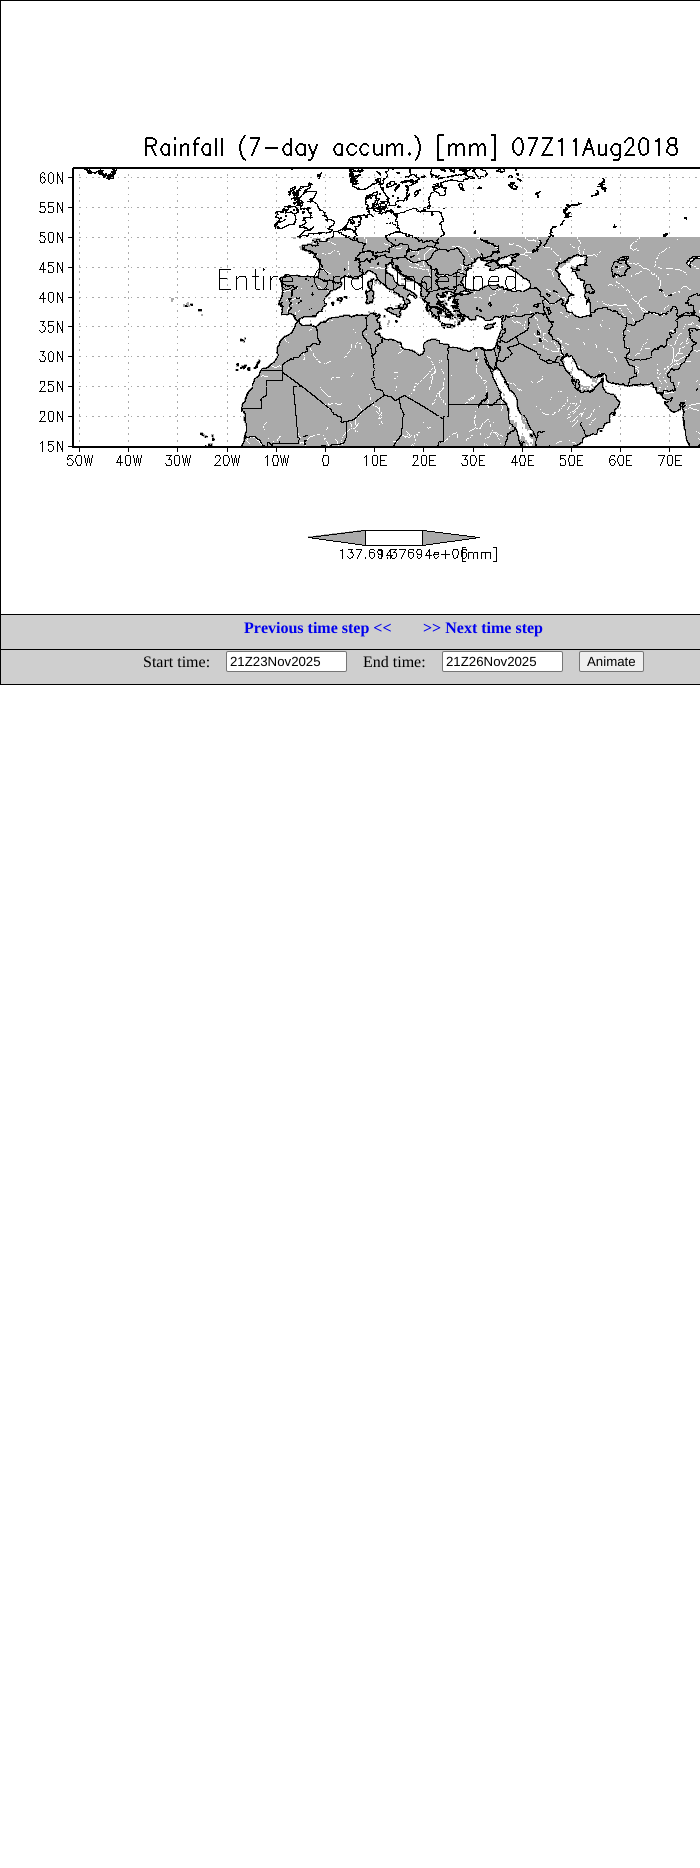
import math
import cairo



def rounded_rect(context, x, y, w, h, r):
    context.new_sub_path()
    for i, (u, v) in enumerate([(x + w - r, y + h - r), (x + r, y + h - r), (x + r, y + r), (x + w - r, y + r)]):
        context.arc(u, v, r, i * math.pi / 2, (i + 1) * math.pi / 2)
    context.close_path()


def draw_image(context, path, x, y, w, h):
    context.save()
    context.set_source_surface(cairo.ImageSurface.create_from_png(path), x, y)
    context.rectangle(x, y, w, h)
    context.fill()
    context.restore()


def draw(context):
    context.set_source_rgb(1, 1, 1)
    context.paint()
    context.rectangle(0.5, 0.5, 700, 684)
    context.set_source_rgb(0, 0, 0)
    context.set_line_width(1)
    context.stroke()
    draw_image(context, "images/1.png", 39, 134, 661, 428)
    context.set_source_rgb(207 / 255, 207 / 255, 207 / 255)
    context.rectangle(0.5, 614.5, 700, 35)
    context.fill_preserve()
    context.set_source_rgb(0, 0, 0)
    context.stroke()
    context.set_source_rgb(207 / 255, 207 / 255, 207 / 255)
    context.rectangle(1, 650, 699, 34)
    context.fill()
    context.set_source_rgb(1, 1, 1)
    rounded_rect(context, 226.5, 651.5, 120, 20, 1.5)
    context.fill_preserve()
    context.set_source_rgb(118 / 255, 118 / 255, 118 / 255)
    context.stroke()
    context.set_source_rgb(1, 1, 1)
    rounded_rect(context, 442.5, 651.5, 120, 20, 1.5)
    context.fill_preserve()
    context.set_source_rgb(118 / 255, 118 / 255, 118 / 255)
    context.stroke()
    context.set_source_rgb(239 / 255, 239 / 255, 239 / 255)
    rounded_rect(context, 579.5, 651.5, 64, 20, 1.5)
    context.fill_preserve()
    context.set_source_rgb(118 / 255, 118 / 255, 118 / 255)
    context.stroke()
    context.select_font_face("Liberation Serif", cairo.FontSlant.NORMAL, cairo.FontWeight.BOLD)
    context.set_font_size(16)
    context.set_source_rgb(0, 0, 238 / 255)
    context.move_to(244, 633)
    context.show_text("Previous time step <<")
    context.move_to(423, 633)
    context.show_text(">> Next time step")
    context.select_font_face("Liberation Serif")
    context.set_source_rgb(0, 0, 0)
    context.move_to(143, 667)
    context.show_text("Start time:")
    context.select_font_face("Liberation Sans")
    context.set_font_size(13.25)
    context.move_to(230, 666)
    context.show_text("21Z23Nov2025")
    context.select_font_face("Liberation Serif")
    context.set_font_size(16)
    context.move_to(363, 667)
    context.show_text("End time:")
    context.select_font_face("Liberation Sans")
    context.set_font_size(13.25)
    context.move_to(446, 666)
    context.show_text("21Z26Nov2025")
    context.move_to(587, 666)
    context.show_text("Animate")


surface = cairo.ImageSurface(cairo.Format.RGB24, 700, 1868)
context = cairo.Context(surface)
options = cairo.FontOptions()
options.set_hint_metrics(cairo.HintMetrics.OFF)
options.set_hint_style(cairo.HintStyle.NONE)
context.set_font_options(options)
context.set_miter_limit(4)
draw(context)
surface.write_to_png("out.png")
